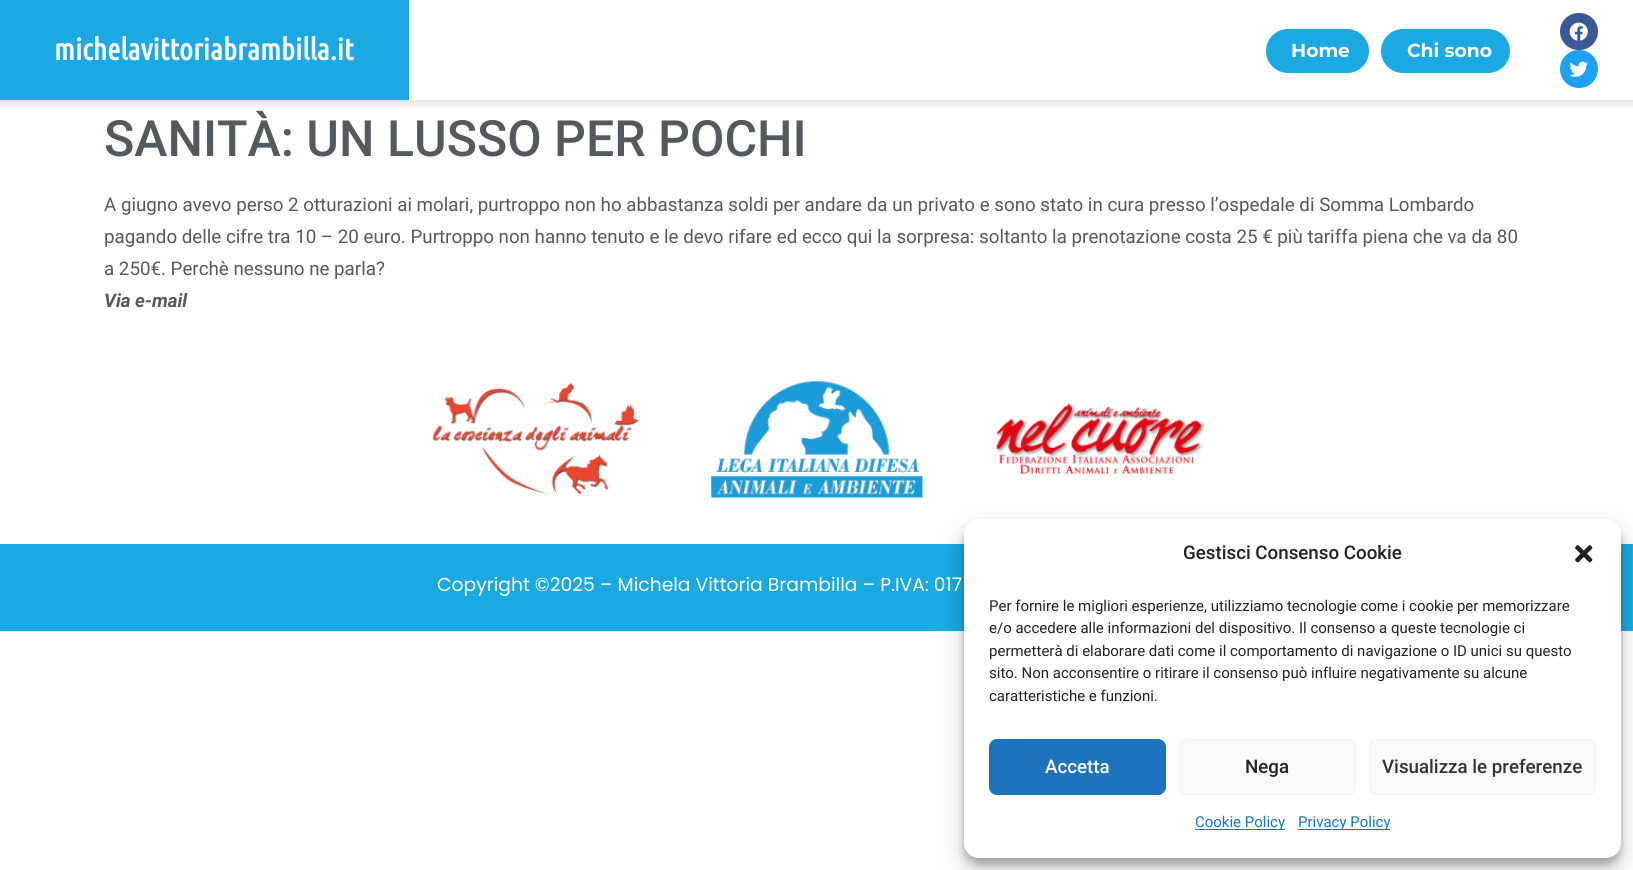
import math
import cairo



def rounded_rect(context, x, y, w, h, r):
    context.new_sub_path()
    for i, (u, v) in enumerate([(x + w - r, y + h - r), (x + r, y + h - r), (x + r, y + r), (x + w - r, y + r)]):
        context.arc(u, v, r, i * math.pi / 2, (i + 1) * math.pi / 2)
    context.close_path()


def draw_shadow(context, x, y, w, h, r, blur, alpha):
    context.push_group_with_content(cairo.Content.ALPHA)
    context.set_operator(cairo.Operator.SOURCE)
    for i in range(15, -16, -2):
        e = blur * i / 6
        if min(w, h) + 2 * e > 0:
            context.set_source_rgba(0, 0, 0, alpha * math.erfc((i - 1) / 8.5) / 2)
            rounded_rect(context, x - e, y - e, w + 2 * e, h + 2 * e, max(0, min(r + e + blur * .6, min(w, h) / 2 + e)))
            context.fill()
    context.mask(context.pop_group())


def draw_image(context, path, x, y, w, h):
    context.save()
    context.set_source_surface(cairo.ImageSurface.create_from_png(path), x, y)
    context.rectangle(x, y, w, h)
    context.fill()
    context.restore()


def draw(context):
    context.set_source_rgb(1, 1, 1)
    context.paint()
    context.save()
    context.rectangle(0, 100, 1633, 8)
    context.clip()
    context.set_source_rgb(0, 0, 0)
    draw_shadow(context, 0, 0, 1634, 100, 0, 6, 0.25)
    context.restore()
    context.set_source_rgb(26 / 255, 169 / 255, 226 / 255)
    context.rectangle(0, 0, 409, 100)
    context.fill()
    rounded_rect(context, 1266, 29, 103, 44, 22)
    context.fill()
    rounded_rect(context, 1381, 29, 129, 44, 22)
    context.fill()
    context.set_source_rgb(59 / 255, 89 / 255, 152 / 255)
    rounded_rect(context, 1560, 13, 38, 37, 18.5)
    context.fill()
    draw_image(context, "images/1.png", 1569, 22, 19, 19)
    context.set_source_rgb(29 / 255, 161 / 255, 242 / 255)
    context.arc(1579, 69, 19, 0, 2 * math.pi)
    context.fill()
    draw_image(context, "images/2.png", 1569, 61, 19, 16)
    draw_image(context, "images/3.png", 432, 383, 208, 112)
    draw_image(context, "images/4.png", 711, 381, 212, 117)
    draw_image(context, "images/5.png", 996, 403, 208, 72)
    context.set_source_rgb(26 / 255, 169 / 255, 226 / 255)
    context.rectangle(0, 544, 1633, 87)
    context.fill()
    context.set_source_rgb(0, 0, 0)
    draw_shadow(context, 964, 526, 657, 339, 15, 4, 0.23)
    draw_shadow(context, 964, 531, 657, 339, 15, 12.5, 0.19)
    context.set_source_rgb(1, 1, 1)
    rounded_rect(context, 964, 519, 657, 339, 15)
    context.fill()
    draw_image(context, "images/6.png", 1575, 545, 18, 18)
    context.set_source_rgb(30 / 255, 115 / 255, 190 / 255)
    rounded_rect(context, 989.5, 739.5, 176, 55, 7.5)
    context.fill_preserve()
    context.set_line_width(1)
    context.stroke()
    context.set_source_rgb(249 / 255, 249 / 255, 249 / 255)
    rounded_rect(context, 1179.5, 739.5, 176, 55, 7.5)
    context.fill_preserve()
    context.set_source_rgb(242 / 255, 242 / 255, 242 / 255)
    context.stroke()
    context.set_source_rgb(249 / 255, 249 / 255, 249 / 255)
    rounded_rect(context, 1369.5, 739.5, 226, 55, 7.5)
    context.fill_preserve()
    context.set_source_rgb(242 / 255, 242 / 255, 242 / 255)
    context.stroke()
    context.set_source_rgb(30 / 255, 115 / 255, 190 / 255)
    context.rectangle(1195, 829, 90, 1)
    context.fill()
    context.rectangle(1298, 829, 92, 1)
    context.fill()
    context.select_font_face("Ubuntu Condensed", cairo.FontSlant.NORMAL, cairo.FontWeight.BOLD)
    context.set_font_size(30)
    context.set_source_rgb(1, 1, 1)
    context.move_to(54, 60)
    context.show_text("michelavittoriabrambilla.it")
    context.select_font_face("Montserrat", cairo.FontSlant.NORMAL, cairo.FontWeight.BOLD)
    context.set_font_size(18.75)
    context.move_to(1291, 57)
    context.show_text("Home")
    context.move_to(1407, 57)
    context.show_text("Chi sono")
    context.select_font_face("Roboto Medium")
    context.set_font_size(50)
    context.set_source_rgb(84 / 255, 89 / 255, 95 / 255)
    context.move_to(104, 156)
    context.show_text("SANITÀ: UN LUSSO PER POCHI")
    context.select_font_face("Roboto")
    context.set_font_size(18.75)
    context.move_to(104, 211)
    context.show_text("A giugno avevo perso 2 otturazioni ai molari, purtroppo non ho abbastanza soldi per andare da un privato e sono stato in cura presso l’ospedale di Somma Lombardo")
    context.move_to(104, 243)
    context.show_text("pagando delle cifre tra 10 – 20 euro. Purtroppo non hanno tenuto e le devo rifare ed ecco qui la sorpresa: soltanto la prenotazione costa 25 € più tariffa piena che va da 80")
    context.move_to(104, 275)
    context.show_text("a 250€. Perchè nessuno ne parla?")
    context.select_font_face("Roboto", cairo.FontSlant.ITALIC, cairo.FontWeight.BOLD)
    context.move_to(104, 307)
    context.show_text("Via e-mail")
    context.select_font_face("Poppins")
    context.set_source_rgb(1, 1, 1)
    context.move_to(437, 591)
    context.show_text("Copyright ©2025 – Michela Vittoria Brambilla – P.IVA: 017")
    context.select_font_face("Roboto Medium")
    context.set_source_rgb(34 / 255, 34 / 255, 34 / 255)
    context.move_to(1183, 559)
    context.show_text("Gestisci Consenso Cookie")
    context.select_font_face("Roboto")
    context.set_font_size(15)
    context.move_to(989, 611)
    context.show_text("Per fornire le migliori esperienze, utilizziamo tecnologie come i cookie per memorizzare")
    context.move_to(989, 633)
    context.show_text("e/o accedere alle informazioni del dispositivo. Il consenso a queste tecnologie ci")
    context.move_to(989, 656)
    context.show_text("permetterà di elaborare dati come il comportamento di navigazione o ID unici su questo")
    context.move_to(989, 678)
    context.show_text("sito. Non acconsentire o ritirare il consenso può influire negativamente su alcune")
    context.move_to(989, 701)
    context.show_text("caratteristiche e funzioni.")
    context.select_font_face("Roboto Medium")
    context.set_font_size(18.75)
    context.set_source_rgb(1, 1, 1)
    context.move_to(1045, 773)
    context.show_text("Accetta")
    context.set_source_rgb(34 / 255, 34 / 255, 34 / 255)
    context.move_to(1245, 773)
    context.show_text("Nega")
    context.set_source_rgb(51 / 255, 51 / 255, 51 / 255)
    context.move_to(1382, 773)
    context.show_text("Visualizza le preferenze")
    context.select_font_face("Roboto")
    context.set_font_size(15)
    context.set_source_rgb(30 / 255, 115 / 255, 190 / 255)
    context.move_to(1195, 827)
    context.show_text("Cookie Policy")
    context.move_to(1298, 827)
    context.show_text("Privacy Policy")


surface = cairo.ImageSurface(cairo.Format.RGB24, 1633, 870)
context = cairo.Context(surface)
options = cairo.FontOptions()
options.set_hint_metrics(cairo.HintMetrics.OFF)
options.set_hint_style(cairo.HintStyle.NONE)
context.set_font_options(options)
context.set_miter_limit(4)
draw(context)
surface.write_to_png("out.png")
